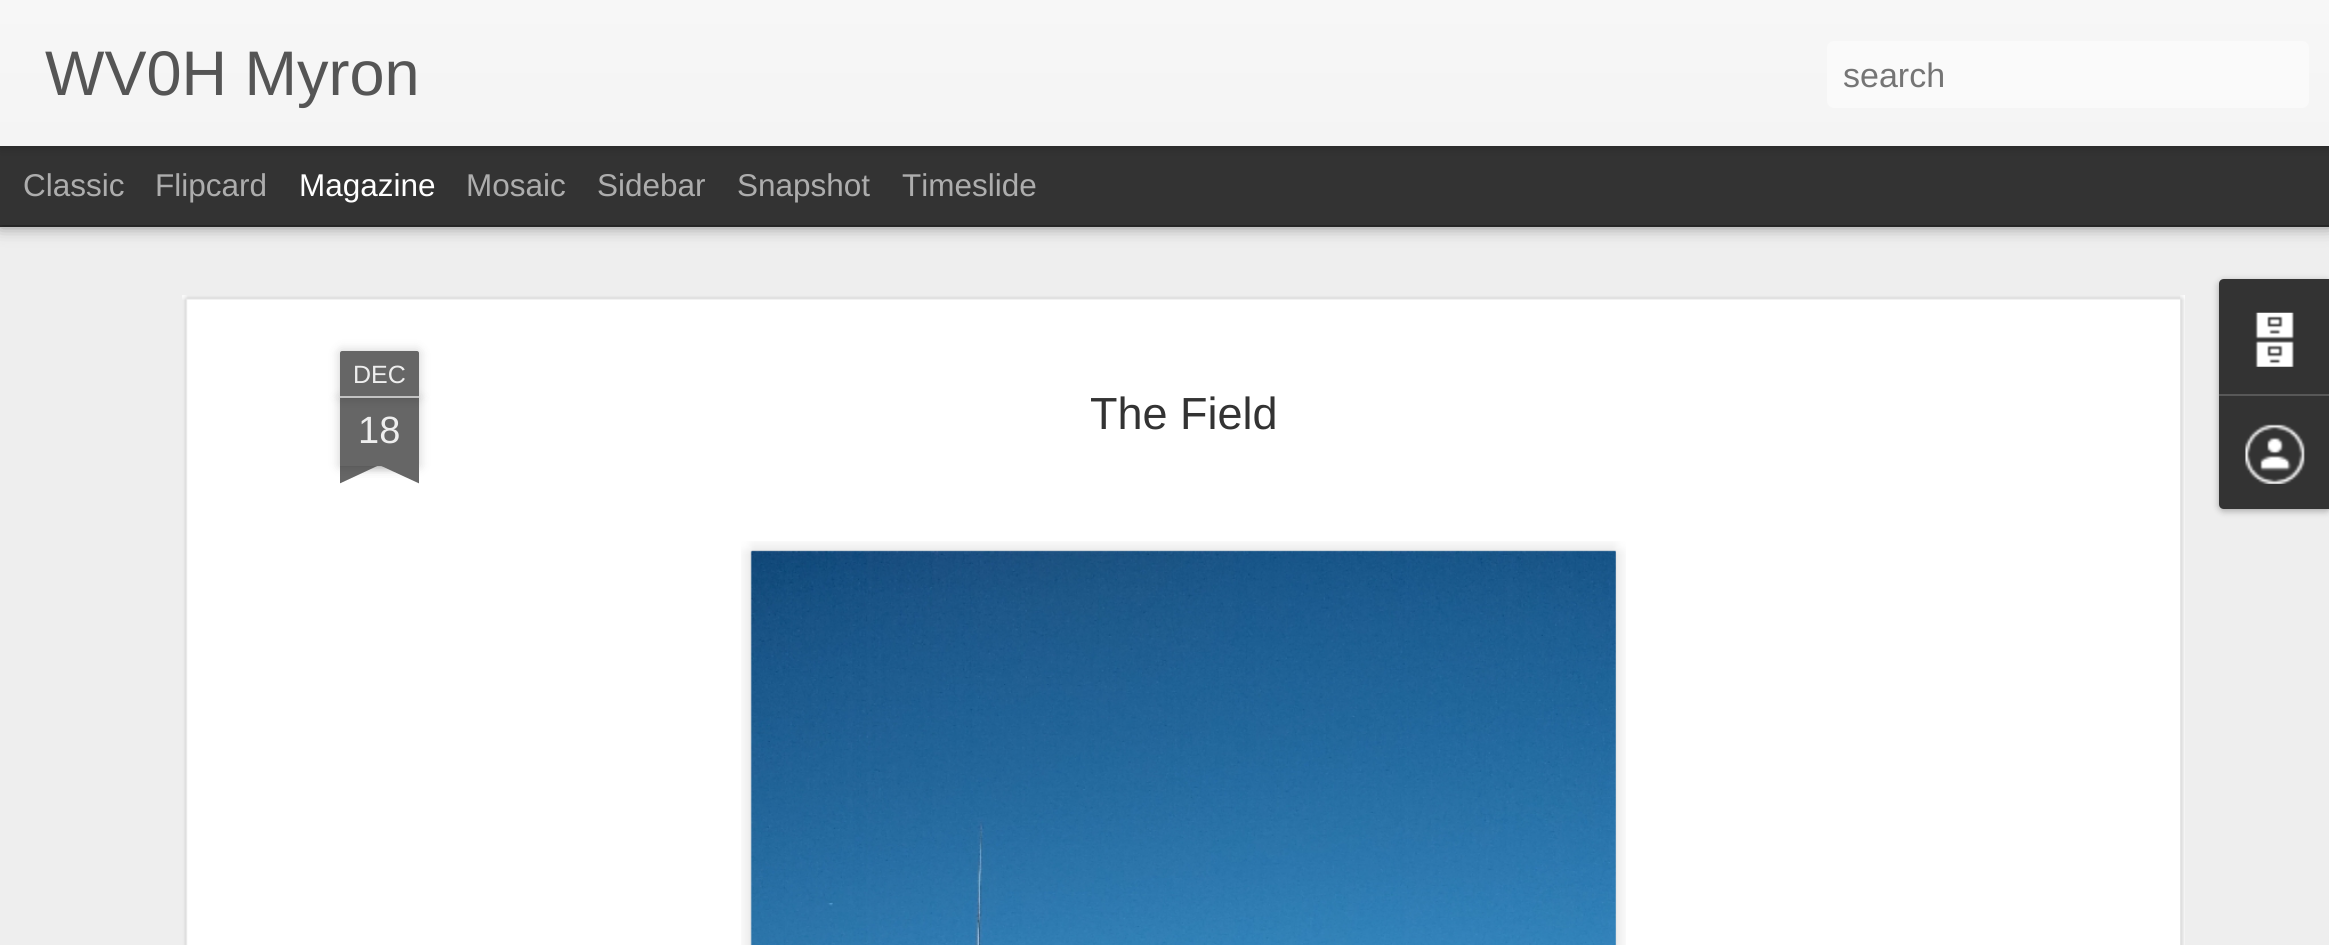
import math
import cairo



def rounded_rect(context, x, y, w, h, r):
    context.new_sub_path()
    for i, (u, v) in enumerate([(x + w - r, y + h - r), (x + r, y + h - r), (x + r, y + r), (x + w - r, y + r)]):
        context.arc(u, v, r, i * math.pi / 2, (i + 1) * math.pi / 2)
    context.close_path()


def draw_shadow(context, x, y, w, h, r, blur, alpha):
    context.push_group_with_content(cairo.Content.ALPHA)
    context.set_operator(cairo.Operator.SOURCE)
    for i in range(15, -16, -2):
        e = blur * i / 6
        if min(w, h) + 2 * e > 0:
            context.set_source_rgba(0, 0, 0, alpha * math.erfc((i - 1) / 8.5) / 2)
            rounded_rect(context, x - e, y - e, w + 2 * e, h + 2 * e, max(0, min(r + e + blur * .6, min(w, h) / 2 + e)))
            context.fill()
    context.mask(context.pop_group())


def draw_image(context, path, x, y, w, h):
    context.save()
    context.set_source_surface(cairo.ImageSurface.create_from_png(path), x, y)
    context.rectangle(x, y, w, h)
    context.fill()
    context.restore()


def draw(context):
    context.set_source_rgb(51 / 255, 51 / 255, 51 / 255)
    context.paint()
    context.set_source_rgb(238 / 255, 238 / 255, 238 / 255)
    context.rectangle(0, 227, 2329, 718)
    context.fill()
    context.set_source_rgb(0, 0, 0)
    draw_shadow(context, 0, 146, 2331, 79, 0, 9, 0.5)
    context.set_source_rgb(51 / 255, 51 / 255, 51 / 255)
    context.rectangle(0, 146, 2329, 79)
    context.fill()
    context.set_source_rgb(0, 0, 0)
    draw_shadow(context, 0, 0, 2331, 146, 0, 5.5, 0.3)
    gradient = cairo.LinearGradient(0, 0, 0, 146)
    gradient.add_color_stop_rgba(0, 247 / 255, 247 / 255, 247 / 255, 1)
    gradient.add_color_stop_rgba(1, 244 / 255, 244 / 255, 244 / 255, 1)
    context.set_source(gradient)
    context.rectangle(0, 0, 2329, 146)
    context.fill()
    context.set_source_rgb(250 / 255, 250 / 255, 250 / 255)
    rounded_rect(context, 1827, 41, 482, 67, 7)
    context.fill()
    context.set_source_rgb(1, 1, 1)
    context.rectangle(182, 295, 2003, 650)
    context.fill()
    draw_image(context, "images/1.png", 182, 295, 2003, 650)
    context.set_source_rgb(0, 0, 0)
    draw_shadow(context, 340, 398, 79, 68, 0, 5.5, 0.2)
    context.set_source_rgb(102 / 255, 102 / 255, 102 / 255)
    context.rectangle(340, 398, 79, 68)
    context.fill()
    context.set_source_rgb(0, 0, 0)
    draw_shadow(context, 340, 351, 79, 47, 2, 5.5, 0.2)
    context.set_source_rgb(102 / 255, 102 / 255, 102 / 255)
    context.new_path()
    context.move_to(342, 351)
    context.line_to(417, 351)
    context.curve_to(418, 351, 419, 352, 419, 353)
    context.line_to(419, 398)
    context.line_to(340, 398)
    context.line_to(340, 353)
    context.curve_to(340, 352, 341, 351, 342, 351)
    context.close_path()
    context.fill()
    context.set_source_rgb(194 / 255, 194 / 255, 194 / 255)
    context.rectangle(340, 396, 79, 2)
    context.fill()
    context.save()
    context.rectangle(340, 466, 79, 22)
    context.clip()
    context.set_source_rgb(0, 0, 0)
    draw_shadow(context, 320, 443, 112, 23, 0, 5.5, 0.2)
    context.restore()
    context.save()
    context.rectangle(340, 466, 79, 22)
    context.clip()
    context.set_source_rgb(102 / 255, 102 / 255, 102 / 255)
    context.new_path()
    context.move_to(320, 468)
    context.line_to(422, 421)
    context.line_to(431, 441)
    context.line_to(330, 488)
    context.close_path()
    context.fill()
    context.restore()
    context.save()
    context.rectangle(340, 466, 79, 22)
    context.clip()
    context.set_source_rgb(0, 0, 0)
    draw_shadow(context, 326, 443, 113, 23, 0, 5.5, 0.2)
    context.restore()
    context.save()
    context.rectangle(340, 466, 79, 22)
    context.clip()
    context.set_source_rgb(102 / 255, 102 / 255, 102 / 255)
    context.new_path()
    context.move_to(336, 421)
    context.line_to(438, 468)
    context.line_to(429, 488)
    context.line_to(327, 441)
    context.close_path()
    context.fill()
    context.restore()
    draw_image(context, "images/2.png", 741, 541, 885, 404)
    draw_image(context, "images/3.png", 750, 550, 866, 395)
    context.set_source_rgb(0, 0, 0)
    draw_shadow(context, 2219, 281, 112, 230, 5, 3.5, 0.3)
    context.set_source_rgb(51 / 255, 51 / 255, 51 / 255)
    context.new_path()
    context.move_to(2224, 279)
    context.line_to(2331, 279)
    context.line_to(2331, 394)
    context.line_to(2219, 394)
    context.line_to(2219, 284)
    context.curve_to(2219, 281, 2221, 279, 2224, 279)
    context.close_path()
    context.fill()
    draw_image(context, "images/4.png", 2255, 312, 39, 55)
    context.new_path()
    context.move_to(2219, 394)
    context.line_to(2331, 394)
    context.line_to(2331, 509)
    context.line_to(2224, 509)
    context.curve_to(2221, 509, 2219, 507, 2219, 504)
    context.close_path()
    context.fill()
    context.set_source_rgb(88 / 255, 88 / 255, 88 / 255)
    context.rectangle(2219, 394, 110, 2)
    context.fill()
    draw_image(context, "images/5.png", 2245, 424, 60, 60)
    context.select_font_face("Liberation Sans")
    context.set_font_size(63)
    context.set_source_rgb(85 / 255, 85 / 255, 85 / 255)
    context.move_to(45, 95)
    context.show_text("WV0H Myron")
    context.set_font_size(34)
    context.set_source_rgb(117 / 255, 117 / 255, 117 / 255)
    context.move_to(1843, 87)
    context.show_text("search")
    context.set_font_size(31.5)
    context.set_source_rgb(173 / 255, 173 / 255, 173 / 255)
    context.move_to(23, 196)
    context.show_text("Classic")
    context.move_to(155, 196)
    context.show_text("Flipcard")
    context.set_source_rgb(1, 1, 1)
    context.move_to(299, 196)
    context.show_text("Magazine")
    context.set_source_rgb(173 / 255, 173 / 255, 173 / 255)
    context.move_to(466, 196)
    context.show_text("Mosaic")
    context.move_to(597, 196)
    context.show_text("Sidebar")
    context.move_to(737, 196)
    context.show_text("Snapshot")
    context.move_to(902, 196)
    context.show_text("Timeslide")
    context.set_font_size(25)
    context.set_source_rgb(238 / 255, 238 / 255, 238 / 255)
    context.move_to(353, 383)
    context.show_text("DEC")
    context.set_font_size(38)
    context.move_to(358, 443)
    context.show_text("18")
    context.set_font_size(45)
    context.set_source_rgb(51 / 255, 51 / 255, 51 / 255)
    context.move_to(1090, 429)
    context.show_text("The Field")


surface = cairo.ImageSurface(cairo.Format.RGB24, 2329, 945)
context = cairo.Context(surface)
options = cairo.FontOptions()
options.set_hint_metrics(cairo.HintMetrics.OFF)
options.set_hint_style(cairo.HintStyle.NONE)
context.set_font_options(options)
context.set_miter_limit(4)
draw(context)
surface.write_to_png("out.png")
